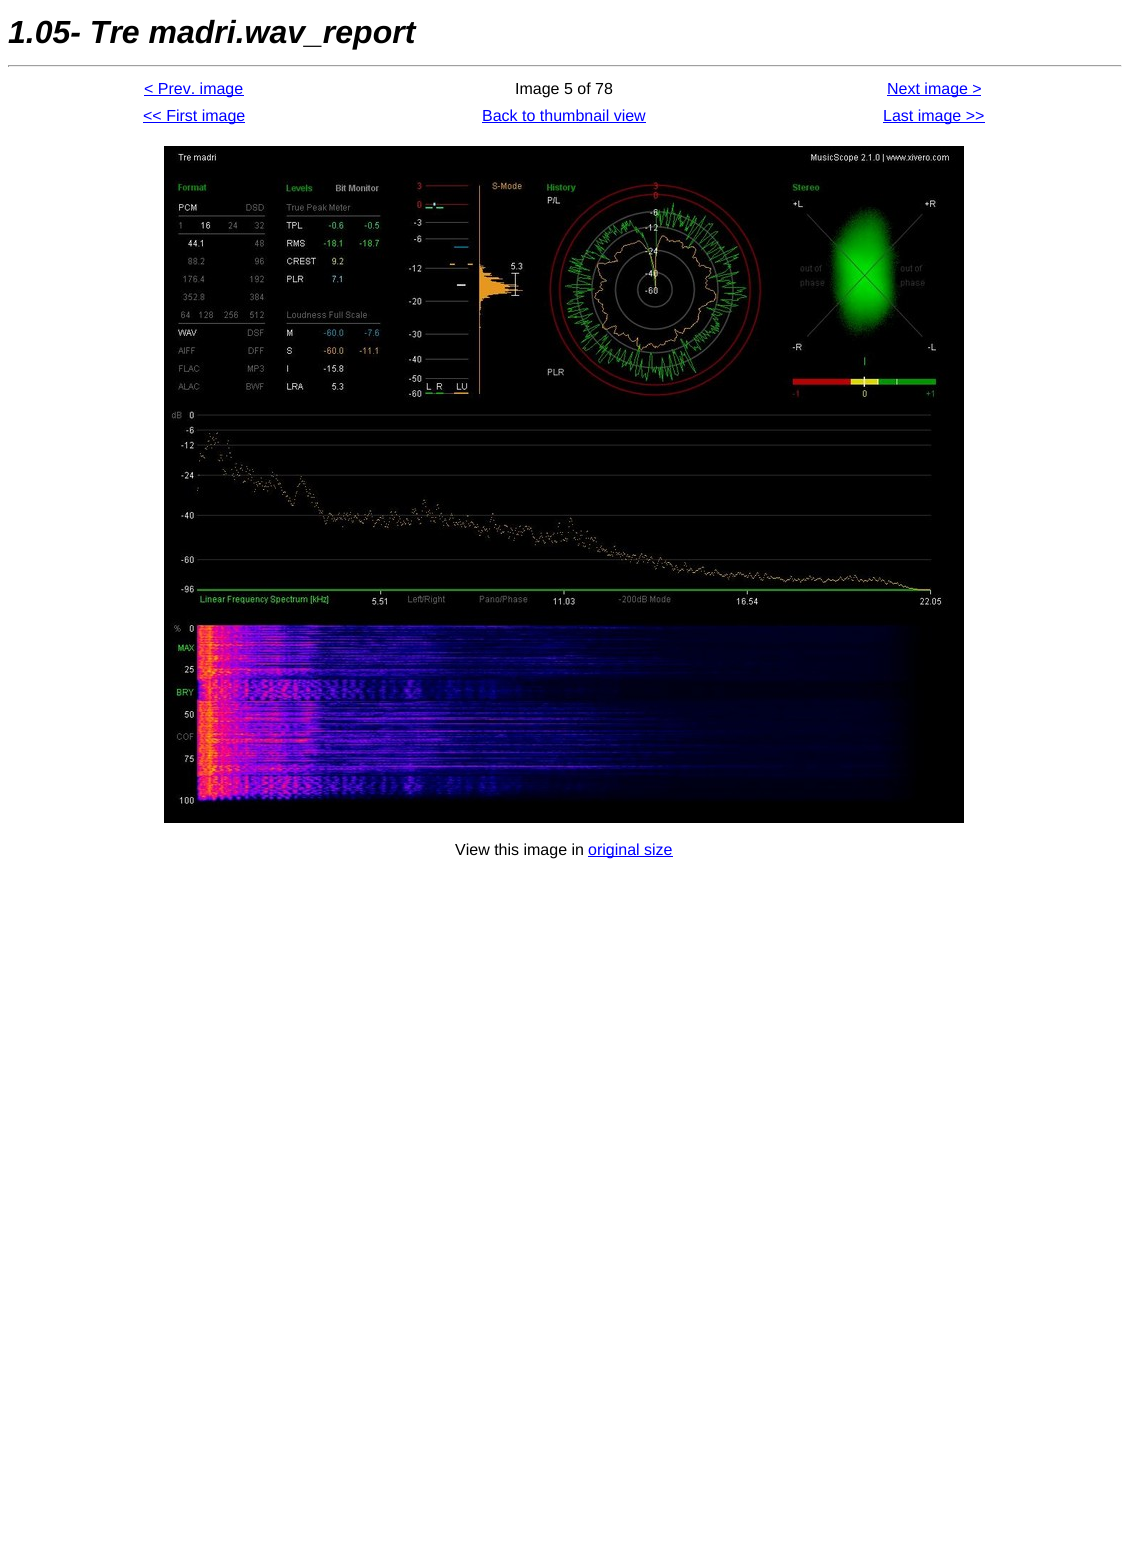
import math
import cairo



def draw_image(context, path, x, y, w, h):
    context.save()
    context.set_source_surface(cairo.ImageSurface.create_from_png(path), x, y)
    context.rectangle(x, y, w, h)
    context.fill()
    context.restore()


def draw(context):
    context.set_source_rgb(1, 1, 1)
    context.paint()
    context.set_source_rgb(159 / 255, 159 / 255, 159 / 255)
    context.rectangle(8, 65, 1114, 1)
    context.fill()
    context.set_source_rgb(238 / 255, 238 / 255, 238 / 255)
    context.rectangle(1121, 65, 1, 2)
    context.fill()
    context.rectangle(8, 66, 1114, 1)
    context.fill()
    context.set_source_rgb(159 / 255, 159 / 255, 159 / 255)
    context.rectangle(8, 65, 1, 2)
    context.fill()
    context.set_source_rgb(0, 0, 1)
    context.rectangle(144, 95, 100, 1)
    context.fill()
    context.rectangle(887, 95, 94, 1)
    context.fill()
    context.rectangle(143, 122, 102, 1)
    context.fill()
    context.rectangle(482, 122, 164, 1)
    context.fill()
    context.rectangle(883, 122, 102, 1)
    context.fill()
    draw_image(context, "images/1.png", 164, 146, 800, 677)
    context.rectangle(588, 856, 85, 1)
    context.fill()
    context.select_font_face("Liberation Sans", cairo.FontSlant.ITALIC, cairo.FontWeight.BOLD)
    context.set_font_size(32)
    context.set_source_rgb(0, 0, 0)
    context.move_to(8, 43)
    context.show_text("1.05- Tre madri.wav_report")
    context.select_font_face("Liberation Sans")
    context.set_font_size(16)
    context.set_source_rgb(0, 0, 1)
    context.move_to(144, 94)
    context.show_text("< Prev. image")
    context.set_source_rgb(0, 0, 0)
    context.move_to(515, 94)
    context.show_text("Image 5 of 78")
    context.set_source_rgb(0, 0, 1)
    context.move_to(887, 94)
    context.show_text("Next image >")
    context.move_to(143, 121)
    context.show_text("<< First image")
    context.move_to(482, 121)
    context.show_text("Back to thumbnail view")
    context.move_to(883, 121)
    context.show_text("Last image >>")
    context.set_source_rgb(0, 0, 0)
    context.move_to(455, 855)
    context.show_text("View this image in")
    context.set_source_rgb(0, 0, 1)
    context.move_to(588, 855)
    context.show_text("original size")


surface = cairo.ImageSurface(cairo.Format.RGB24, 1128, 1548)
context = cairo.Context(surface)
options = cairo.FontOptions()
options.set_hint_metrics(cairo.HintMetrics.OFF)
options.set_hint_style(cairo.HintStyle.NONE)
context.set_font_options(options)
context.set_miter_limit(4)
draw(context)
surface.write_to_png("out.png")
